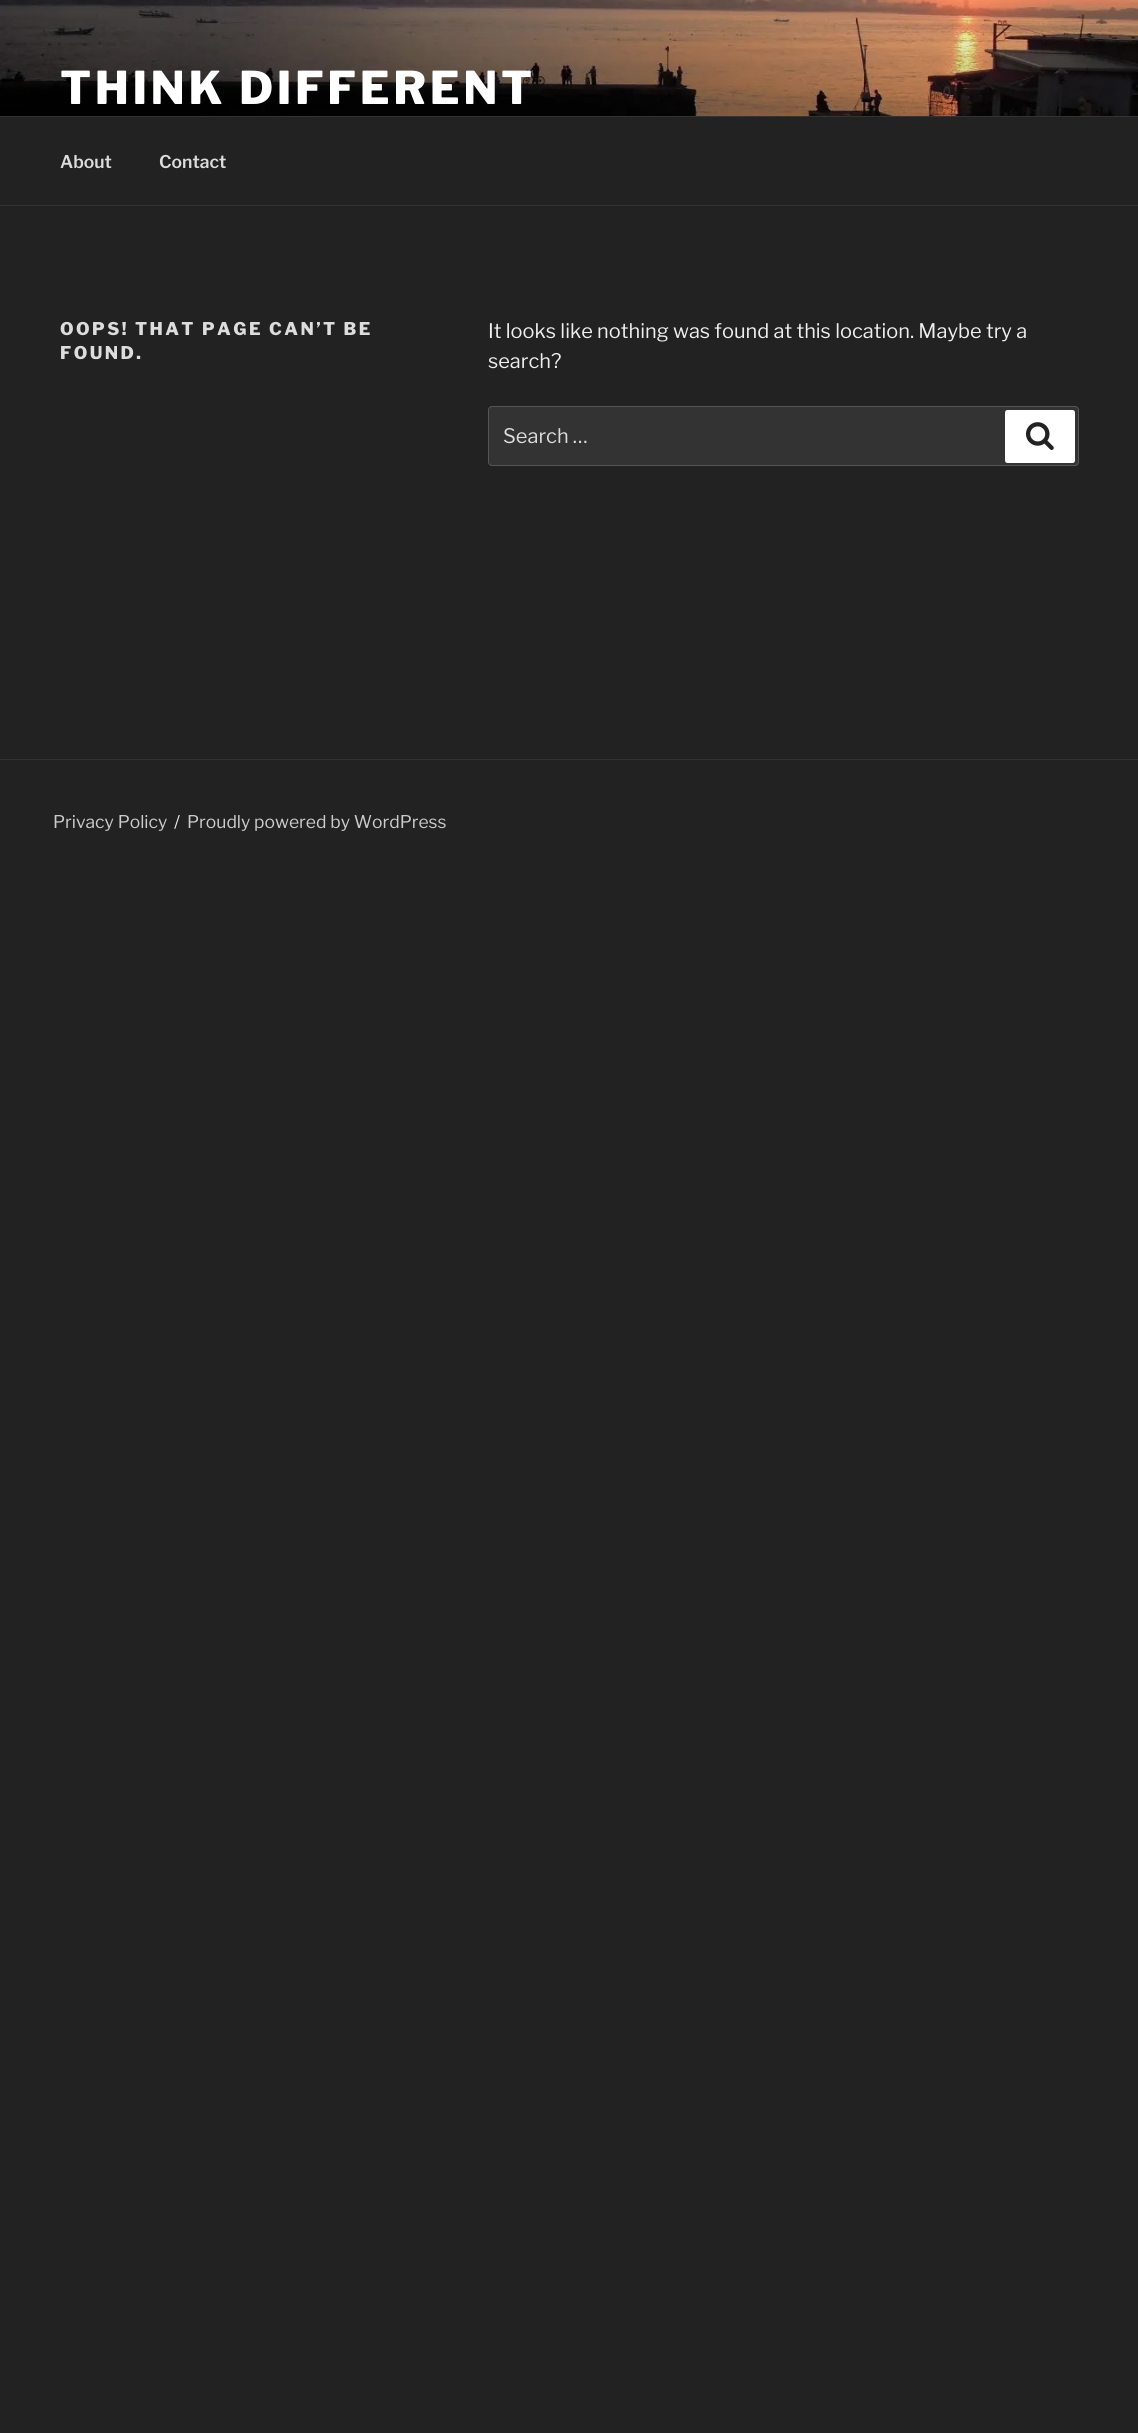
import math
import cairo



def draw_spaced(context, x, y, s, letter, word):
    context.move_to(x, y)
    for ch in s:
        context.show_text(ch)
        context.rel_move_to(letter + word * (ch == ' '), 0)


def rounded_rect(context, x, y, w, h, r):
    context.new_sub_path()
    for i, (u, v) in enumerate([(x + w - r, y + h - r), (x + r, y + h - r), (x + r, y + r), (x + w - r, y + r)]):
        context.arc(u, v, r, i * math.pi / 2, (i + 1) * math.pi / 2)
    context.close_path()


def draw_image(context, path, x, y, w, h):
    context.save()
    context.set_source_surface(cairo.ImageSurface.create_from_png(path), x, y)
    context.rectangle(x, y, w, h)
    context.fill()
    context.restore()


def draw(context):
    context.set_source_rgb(34 / 255, 34 / 255, 34 / 255)
    context.paint()
    draw_image(context, "images/1.png", 0, 0, 1138, 116)
    context.set_source_rgb(51 / 255, 51 / 255, 51 / 255)
    context.rectangle(0, 116, 1138, 1)
    context.fill()
    context.rectangle(0, 205, 1138, 1)
    context.fill()
    rounded_rect(context, 488.5, 406.5, 590, 59, 3.5)
    context.fill_preserve()
    context.set_source_rgb(85 / 255, 85 / 255, 85 / 255)
    context.set_line_width(1)
    context.stroke()
    context.set_source_rgb(1, 1, 1)
    rounded_rect(context, 1005, 410, 70, 53, 2.5)
    context.fill()
    draw_image(context, "images/2.png", 1025, 422, 29, 28)
    context.set_source_rgb(51 / 255, 51 / 255, 51 / 255)
    context.rectangle(0, 759, 1138, 1)
    context.fill()
    context.select_font_face("Libre Franklin Thin")
    context.set_font_size(45)
    context.set_source_rgb(1, 1, 1)
    draw_spaced(context, 60, 104, "THINK DIFFERENT", 3.6, 0)
    context.select_font_face("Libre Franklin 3 Thin")
    context.set_font_size(17.5)
    context.set_source_rgb(221 / 255, 221 / 255, 221 / 255)
    context.move_to(60, 168)
    context.show_text("About")
    context.move_to(159, 168)
    context.show_text("Contact")
    context.select_font_face("Libre Franklin Thin")
    draw_spaced(context, 60, 335, "OOPS! THAT PAGE CAN’T BE", 2.45, 0)
    draw_spaced(context, 60, 359, "FOUND.", 2.45, 0)
    context.select_font_face("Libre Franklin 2 Thin")
    context.set_font_size(20)
    context.set_source_rgb(238 / 255, 238 / 255, 238 / 255)
    context.move_to(488, 338)
    context.show_text("It looks like nothing was found at this location. Maybe try a")
    context.move_to(488, 368)
    context.show_text("search?")
    context.set_source_rgb(221 / 255, 221 / 255, 221 / 255)
    context.move_to(503, 443)
    context.show_text("Search …")
    context.set_font_size(17.5)
    context.set_source_rgb(204 / 255, 204 / 255, 204 / 255)
    context.move_to(53, 828)
    context.show_text("Privacy Policy")
    context.set_source_rgb(238 / 255, 238 / 255, 238 / 255)
    context.move_to(174, 828)
    context.show_text("/")
    context.set_source_rgb(204 / 255, 204 / 255, 204 / 255)
    context.move_to(187, 828)
    context.show_text("Proudly powered by WordPress")


surface = cairo.ImageSurface(cairo.Format.RGB24, 1138, 2433)
context = cairo.Context(surface)
options = cairo.FontOptions()
options.set_hint_metrics(cairo.HintMetrics.OFF)
options.set_hint_style(cairo.HintStyle.NONE)
context.set_font_options(options)
context.set_miter_limit(4)
draw(context)
surface.write_to_png("out.png")
